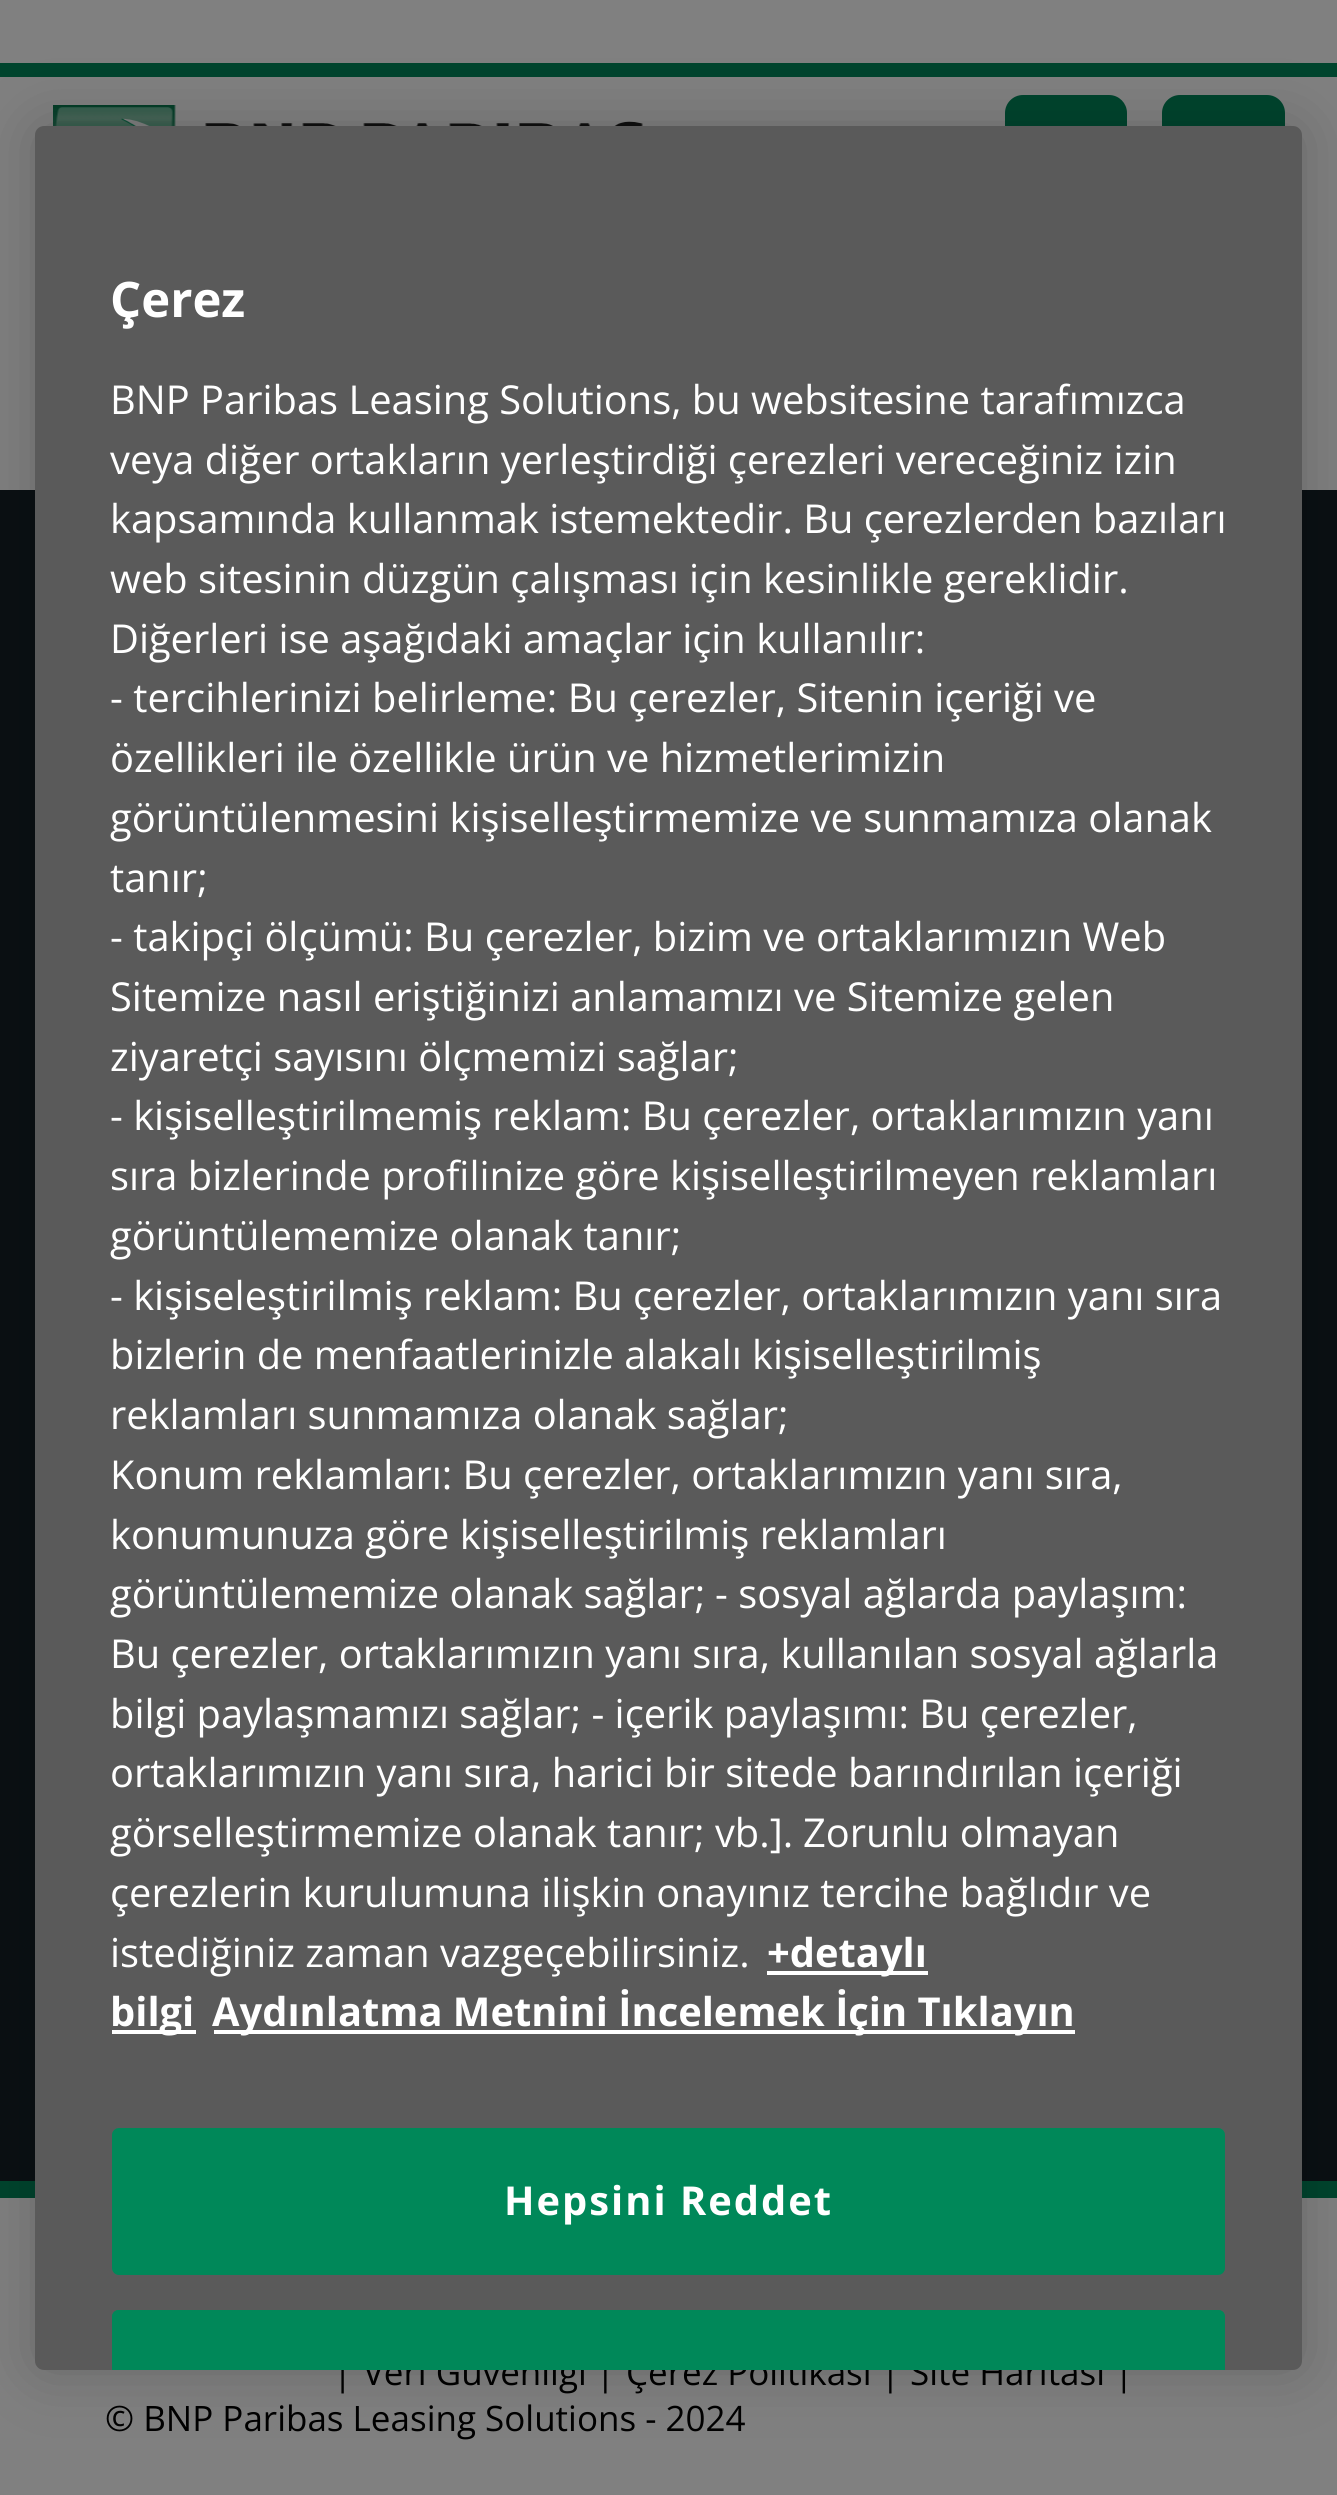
import math
import cairo



def draw_spaced(context, x, y, s, letter, word):
    context.move_to(x, y)
    for ch in s:
        context.show_text(ch)
        context.rel_move_to(letter + word * (ch == ' '), 0)


def rounded_rect(context, x, y, w, h, r):
    context.new_sub_path()
    for i, (u, v) in enumerate([(x + w - r, y + h - r), (x + r, y + h - r), (x + r, y + r), (x + w - r, y + r)]):
        context.arc(u, v, r, i * math.pi / 2, (i + 1) * math.pi / 2)
    context.close_path()


def draw_shadow(context, x, y, w, h, r, blur, alpha):
    context.push_group_with_content(cairo.Content.ALPHA)
    context.set_operator(cairo.Operator.SOURCE)
    for i in range(15, -16, -2):
        e = blur * i / 6
        if min(w, h) + 2 * e > 0:
            context.set_source_rgba(0, 0, 0, alpha * math.erfc((i - 1) / 8.5) / 2)
            rounded_rect(context, x - e, y - e, w + 2 * e, h + 2 * e, max(0, min(r + e + blur * .6, min(w, h) / 2 + e)))
            context.fill()
    context.mask(context.pop_group())


def draw_image(context, path, x, y, w, h):
    context.save()
    context.set_source_surface(cairo.ImageSurface.create_from_png(path), x, y)
    context.rectangle(x, y, w, h)
    context.fill()
    context.restore()


def draw(context):
    context.set_source_rgb(128 / 255, 128 / 255, 128 / 255)
    context.paint()
    context.set_source_rgb(0, 68 / 255, 45 / 255)
    context.rectangle(0, 63, 1337, 14)
    context.fill()
    draw_image(context, "images/1.png", 53, 105, 590, 21)
    rounded_rect(context, 1007, 97, 118, 118, 16)
    context.fill_preserve()
    context.set_line_width(4)
    context.stroke()
    rounded_rect(context, 1162, 95, 123, 122, 18)
    context.fill()
    context.set_source_rgb(10 / 255, 16 / 255, 19 / 255)
    context.rectangle(0, 490, 1337, 1691)
    context.fill()
    context.set_source_rgb(0, 68 / 255, 45 / 255)
    context.rectangle(0, 2181, 1337, 17)
    context.fill()
    context.set_source_rgb(0, 0, 0)
    draw_shadow(context, 35, 126, 1267, 2244, 9, 31.5, 0.2)
    context.select_font_face("Open Sans")
    context.set_font_size(35)
    context.set_source_rgb(0, 0, 0)
    context.move_to(333, 2385)
    context.show_text("|")
    context.move_to(363, 2385)
    context.show_text("Veri Güvenliği |")
    context.move_to(626, 2385)
    context.show_text("Çerez Politikası |")
    context.move_to(910, 2385)
    context.show_text("Site Haritası |")
    context.set_source_rgb(90 / 255, 90 / 255, 90 / 255)
    rounded_rect(context, 35, 126, 1267, 2244, 9)
    context.fill()
    context.set_source_rgb(0, 136 / 255, 89 / 255)
    context.new_path()
    context.move_to(119, 2310)
    context.line_to(1218, 2310)
    context.curve_to(1222, 2310, 1225, 2313, 1225, 2317)
    context.line_to(1225, 2370)
    context.line_to(112, 2370)
    context.line_to(112, 2317)
    context.curve_to(112, 2313, 115, 2310, 119, 2310)
    context.close_path()
    context.fill()
    context.new_path()
    context.move_to(119, 2310)
    context.curve_to(115, 2310, 112, 2313, 112, 2317)
    context.line_to(112, 2370)
    context.line_to(116, 2370)
    context.line_to(116, 2317)
    context.curve_to(116, 2315, 117, 2314, 119, 2314)
    context.line_to(1218, 2314)
    context.curve_to(1220, 2314, 1221, 2315, 1221, 2317)
    context.line_to(1221, 2370)
    context.line_to(1225, 2370)
    context.line_to(1225, 2317)
    context.curve_to(1225, 2313, 1222, 2310, 1218, 2310)
    context.close_path()
    context.fill()
    rounded_rect(context, 114, 2130, 1109, 143, 5)
    context.fill_preserve()
    context.stroke()
    context.select_font_face("Open Sans", cairo.FontSlant.NORMAL, cairo.FontWeight.BOLD)
    context.set_font_size(39.85)
    context.set_source_rgb(1, 1, 1)
    draw_spaced(context, 504, 2215, "Hepsini Reddet", 2, 0)
    context.rectangle(214, 2030, 861, 4)
    context.fill()
    context.move_to(212, 2026)
    context.show_text("Aydınlatma Metnini İncelemek İçin Tıklayın")
    context.rectangle(112, 2030, 84, 4)
    context.fill()
    context.move_to(110, 2026)
    context.show_text("bilgi")
    context.rectangle(767, 1971, 161, 4)
    context.fill()
    context.move_to(767, 1967)
    context.show_text("+detaylı")
    context.select_font_face("Open Sans")
    context.move_to(110, 1967)
    context.show_text("istediğiniz zaman vazgeçebilirsiniz.")
    context.move_to(110, 1907)
    context.show_text("çerezlerin kurulumuna ilişkin onayınız tercihe bağlıdır ve")
    context.move_to(803, 1847)
    context.show_text("Zorunlu olmayan")
    context.move_to(110, 1847)
    context.show_text("görselleştirmemize olanak tanır; vb.].")
    context.move_to(110, 1787)
    context.show_text("ortaklarımızın yanı sıra, harici bir sitede barındırılan içeriği")
    context.move_to(110, 1728)
    context.show_text("bilgi paylaşmamızı sağlar; - içerik paylaşımı: Bu çerezler,")
    context.move_to(110, 1668)
    context.show_text("Bu çerezler, ortaklarımızın yanı sıra, kullanılan sosyal ağlarla")
    context.move_to(715, 1608)
    context.show_text("- sosyal ağlarda paylaşım:")
    context.move_to(110, 1608)
    context.show_text("görüntülememize olanak sağlar;")
    context.move_to(110, 1549)
    context.show_text("konumunuza göre kişiselleştirilmiş reklamları")
    context.move_to(110, 1489)
    context.show_text("Konum reklamları: Bu çerezler, ortaklarımızın yanı sıra,")
    context.move_to(110, 1429)
    context.show_text("reklamları sunmamıza olanak sağlar;")
    context.move_to(110, 1369)
    context.show_text("bizlerin de menfaatlerinizle alakalı kişiselleştirilmiş")
    context.move_to(110, 1310)
    context.show_text("- kişiseleştirilmiş reklam: Bu çerezler, ortaklarımızın yanı sıra")
    context.move_to(110, 1250)
    context.show_text("görüntülememize olanak tanır;")
    context.move_to(110, 1190)
    context.show_text("sıra bizlerinde profilinize göre kişiselleştirilmeyen reklamları")
    context.move_to(110, 1130)
    context.show_text("- kişiselleştirilmemiş reklam: Bu çerezler, ortaklarımızın yanı")
    context.move_to(110, 1071)
    context.show_text("ziyaretçi sayısını ölçmemizi sağlar;")
    context.move_to(110, 1011)
    context.show_text("Sitemize nasıl eriştiğinizi anlamamızı ve Sitemize gelen")
    context.move_to(110, 951)
    context.show_text("- takipçi ölçümü: Bu çerezler, bizim ve ortaklarımızın Web")
    context.move_to(110, 892)
    context.show_text("tanır;")
    context.move_to(110, 832)
    context.show_text("görüntülenmesini kişiselleştirmemize ve sunmamıza olanak")
    context.move_to(110, 772)
    context.show_text("özellikleri ile özellikle ürün ve hizmetlerimizin")
    context.move_to(110, 712)
    context.show_text("- tercihlerinizi belirleme: Bu çerezler, Sitenin içeriği ve")
    context.move_to(110, 653)
    context.show_text("Diğerleri ise aşağıdaki amaçlar için kullanılır:")
    context.move_to(110, 593)
    context.show_text("web sitesinin düzgün çalışması için kesinlikle gereklidir.")
    context.move_to(110, 533)
    context.show_text("kapsamında kullanmak istemektedir. Bu çerezlerden bazıları")
    context.move_to(110, 474)
    context.show_text("veya diğer ortakların yerleştirdiği çerezleri vereceğiniz izin")
    context.move_to(110, 414)
    context.show_text("BNP Paribas Leasing Solutions, bu websitesine tarafımızca")
    context.select_font_face("Open Sans", cairo.FontSlant.NORMAL, cairo.FontWeight.BOLD)
    context.set_font_size(49)
    context.move_to(110, 317)
    context.show_text("Çerez")
    context.select_font_face("Open Sans")
    context.set_font_size(35)
    context.set_source_rgb(0, 0, 0)
    context.move_to(105, 2431)
    context.show_text("© BNP Paribas Leasing Solutions - 2024")


surface = cairo.ImageSurface(cairo.Format.RGB24, 1337, 2495)
context = cairo.Context(surface)
options = cairo.FontOptions()
options.set_hint_metrics(cairo.HintMetrics.OFF)
options.set_hint_style(cairo.HintStyle.NONE)
context.set_font_options(options)
context.set_miter_limit(4)
draw(context)
surface.write_to_png("out.png")
